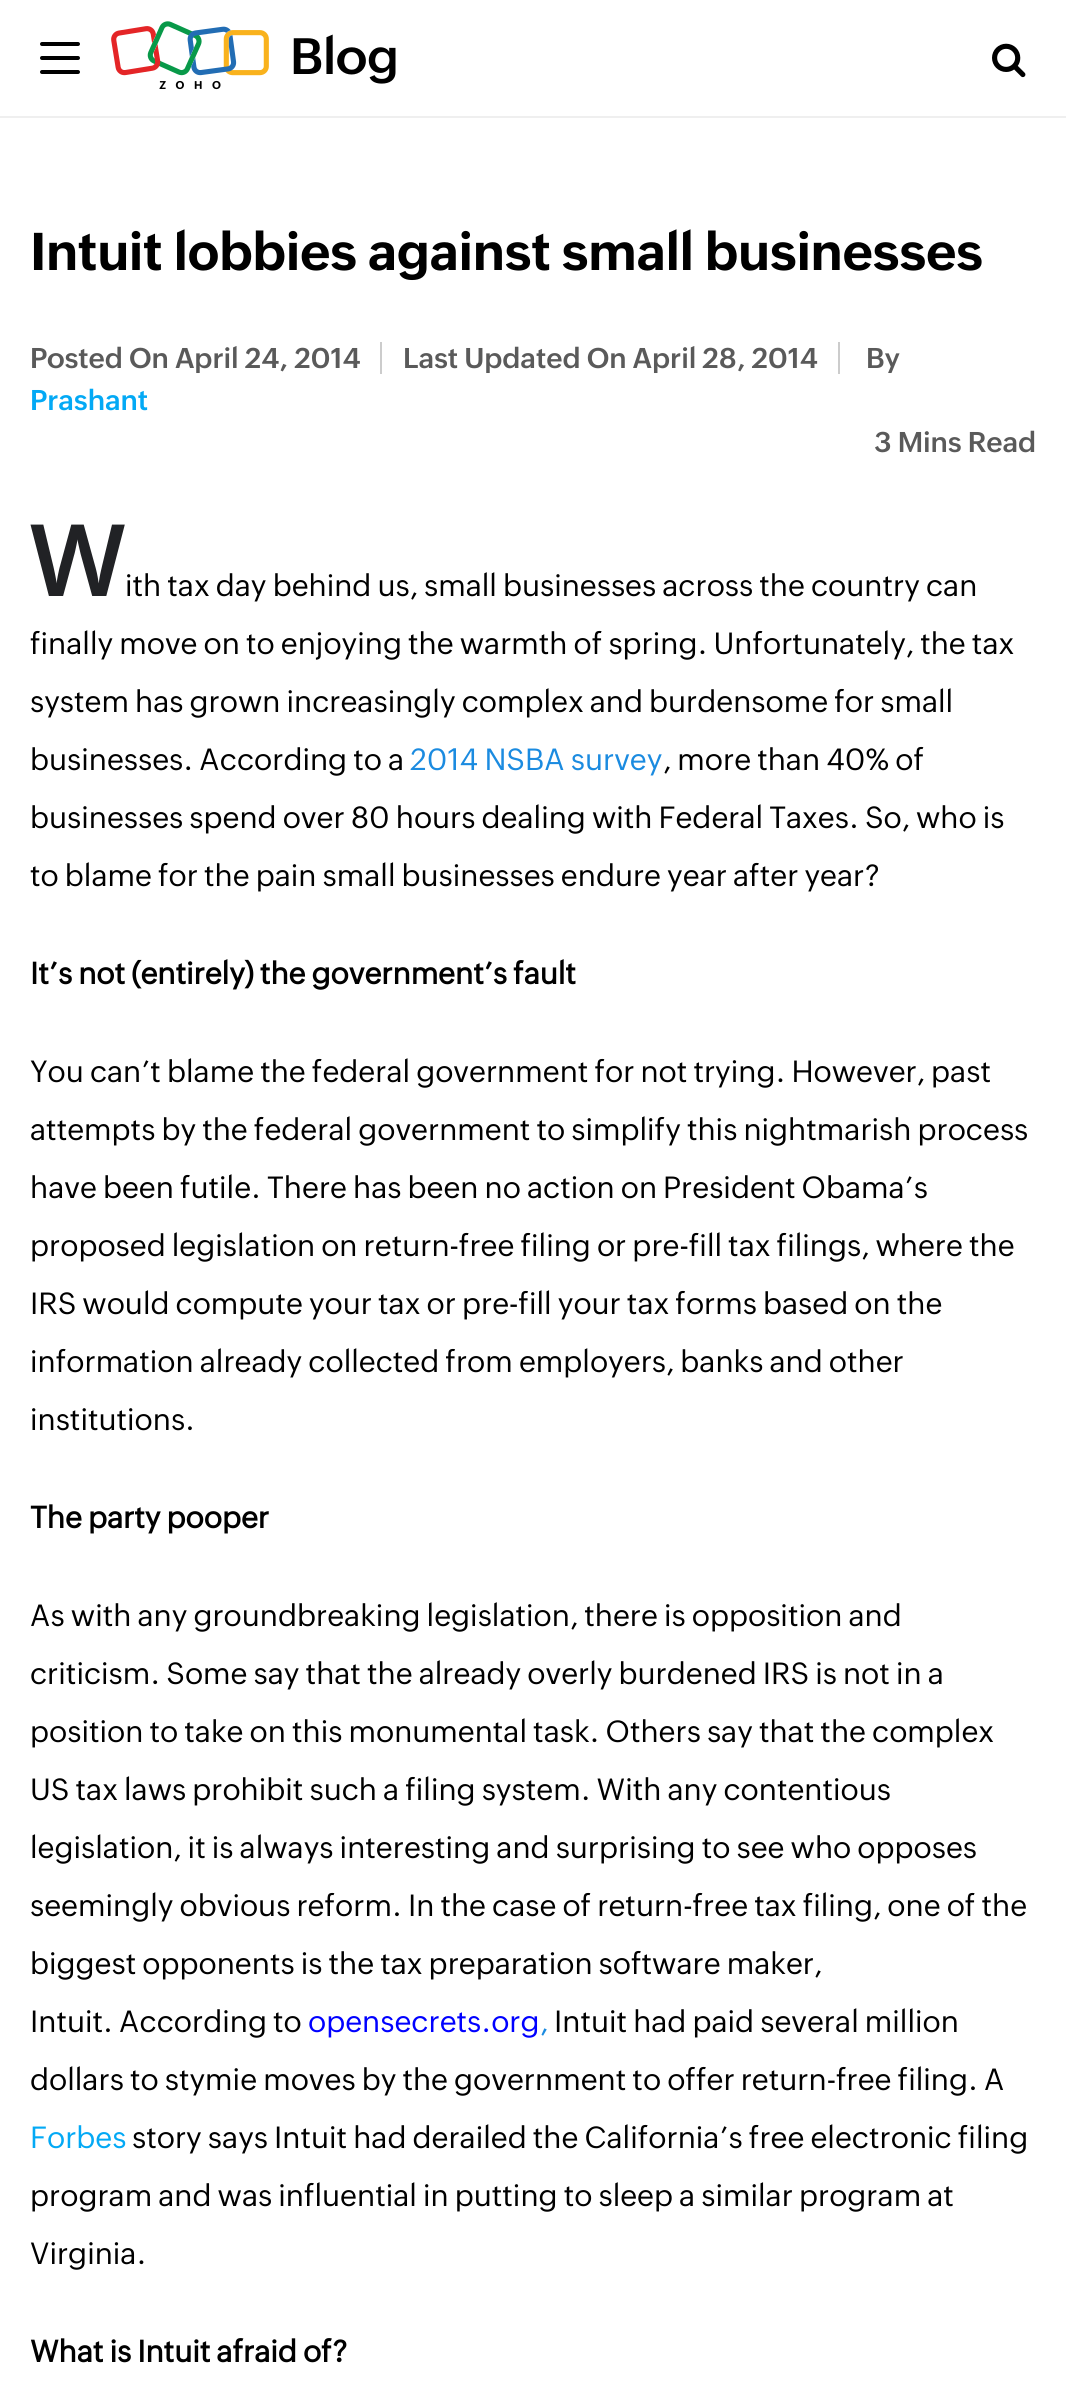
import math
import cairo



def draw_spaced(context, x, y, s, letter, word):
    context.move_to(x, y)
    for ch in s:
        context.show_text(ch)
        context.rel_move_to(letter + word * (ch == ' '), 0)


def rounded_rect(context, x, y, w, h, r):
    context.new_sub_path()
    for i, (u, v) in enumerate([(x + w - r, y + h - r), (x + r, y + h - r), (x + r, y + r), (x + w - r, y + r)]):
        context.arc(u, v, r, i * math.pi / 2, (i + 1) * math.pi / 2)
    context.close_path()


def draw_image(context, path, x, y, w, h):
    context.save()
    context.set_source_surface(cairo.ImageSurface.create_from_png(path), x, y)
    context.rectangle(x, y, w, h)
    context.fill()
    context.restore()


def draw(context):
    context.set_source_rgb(1, 1, 1)
    context.paint()
    context.set_source_rgb(239 / 255, 239 / 255, 239 / 255)
    context.rectangle(0, 116, 1066, 2)
    context.fill()
    context.set_source_rgb(0, 0, 0)
    rounded_rect(context, 40, 70, 40, 4, 2)
    context.fill()
    rounded_rect(context, 40, 42, 40, 4, 2)
    context.fill()
    rounded_rect(context, 40, 56, 40, 4, 2)
    context.fill()
    draw_image(context, "images/1.png", 111, 21, 158, 69)
    draw_image(context, "images/2.png", 992, 43, 34, 35)
    context.set_source_rgb(204 / 255, 204 / 255, 204 / 255)
    context.rectangle(380, 342, 2, 32)
    context.fill()
    context.rectangle(838, 342, 2, 32)
    context.fill()
    context.select_font_face("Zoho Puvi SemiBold")
    context.set_font_size(50)
    context.set_source_rgb(0, 0, 0)
    context.move_to(290, 74)
    context.show_text("Blog")
    context.select_font_face("Zoho Puvi", cairo.FontSlant.NORMAL, cairo.FontWeight.BOLD)
    context.set_font_size(52)
    draw_spaced(context, 30, 270, "Intuit lobbies against small businesses", -0.4, 0)
    context.select_font_face("Zoho Puvi SemiBold")
    context.set_font_size(28)
    context.set_source_rgb(90 / 255, 90 / 255, 90 / 255)
    context.move_to(30, 368)
    context.show_text("Posted On April 24, 2014")
    context.move_to(403, 368)
    context.show_text("Last Updated On April 28, 2014")
    context.move_to(866, 368)
    context.show_text("By")
    context.set_source_rgb(3 / 255, 169 / 255, 245 / 255)
    context.move_to(30, 410)
    context.show_text("Prashant")
    context.set_source_rgb(90 / 255, 90 / 255, 90 / 255)
    context.move_to(874, 452)
    context.show_text("3 Mins Read")
    context.select_font_face("Noto Sans SemiBold")
    context.set_font_size(100)
    context.set_source_rgb(33 / 255, 34 / 255, 37 / 255)
    context.move_to(30, 596)
    context.show_text("W")
    context.select_font_face("Zoho Puvi")
    context.set_font_size(30)
    context.set_source_rgb(0, 0, 0)
    context.move_to(125, 596)
    context.show_text("ith tax day behind us, small businesses across the country can")
    context.move_to(30, 654)
    context.show_text("finally move on to enjoying the warmth of spring. Unfortunately, the tax")
    context.move_to(30, 712)
    context.show_text("system has grown increasingly complex and burdensome for small")
    context.move_to(30, 770)
    context.show_text("businesses. According to a")
    context.set_source_rgb(27 / 255, 139 / 255, 224 / 255)
    context.move_to(410, 770)
    context.show_text("2014 NSBA survey")
    context.set_source_rgb(0, 0, 0)
    context.move_to(663, 770)
    context.show_text(", more than 40% of")
    context.move_to(30, 828)
    context.show_text("businesses spend over 80 hours dealing with Federal Taxes. So, who is")
    context.move_to(30, 886)
    context.show_text("to blame for the pain small businesses endure year after year?")
    context.select_font_face("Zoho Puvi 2", cairo.FontSlant.NORMAL, cairo.FontWeight.BOLD)
    context.move_to(30, 984)
    context.show_text("It’s not (entirely) the government’s fault")
    context.select_font_face("Zoho Puvi")
    context.move_to(30, 1082)
    context.show_text("You can’t blame the federal government for not trying. However, past")
    context.move_to(30, 1140)
    context.show_text("attempts by the federal government to simplify this nightmarish process")
    context.move_to(30, 1198)
    context.show_text("have been futile. There has been no action on President Obama’s")
    context.move_to(30, 1256)
    context.show_text("proposed legislation on return-free filing or pre-fill tax filings, where the")
    context.move_to(30, 1314)
    context.show_text("IRS would compute your tax or pre-fill your tax forms based on the")
    context.move_to(30, 1372)
    context.show_text("information already collected from employers, banks and other")
    context.move_to(30, 1430)
    context.show_text("institutions.")
    context.select_font_face("Zoho Puvi 2", cairo.FontSlant.NORMAL, cairo.FontWeight.BOLD)
    context.move_to(30, 1528)
    context.show_text("The party pooper")
    context.select_font_face("Zoho Puvi")
    context.move_to(30, 1626)
    context.show_text("As with any groundbreaking legislation, there is opposition and")
    context.move_to(30, 1684)
    context.show_text("criticism. Some say that the already overly burdened IRS is not in a")
    context.move_to(30, 1742)
    context.show_text("position to take on this monumental task. Others say that the complex")
    context.move_to(30, 1800)
    context.show_text("US tax laws prohibit such a filing system. With any contentious")
    context.move_to(30, 1858)
    context.show_text("legislation, it is always interesting and surprising to see who opposes")
    context.move_to(30, 1916)
    context.show_text("seemingly obvious reform. In the case of return-free tax filing, one of the")
    context.move_to(30, 1974)
    context.show_text("biggest opponents is the tax preparation software maker,")
    context.move_to(30, 2032)
    context.show_text("Intuit. According to")
    context.set_source_rgb(0, 0, 1)
    context.move_to(308, 2032)
    context.show_text("opensecrets.org")
    context.set_source_rgb(27 / 255, 139 / 255, 224 / 255)
    context.move_to(540, 2032)
    context.show_text(",")
    context.set_source_rgb(0, 0, 0)
    context.move_to(554, 2032)
    context.show_text("Intuit had paid several million")
    context.move_to(30, 2090)
    context.show_text("dollars to stymie moves by the government to offer return-free filing. A")
    context.set_source_rgb(3 / 255, 169 / 255, 245 / 255)
    context.move_to(30, 2148)
    context.show_text("Forbes")
    context.set_source_rgb(0, 0, 0)
    context.move_to(132, 2148)
    context.show_text("story says Intuit had derailed the California’s free electronic filing")
    context.move_to(30, 2206)
    context.show_text("program and was influential in putting to sleep a similar program at")
    context.move_to(30, 2264)
    context.show_text("Virginia.")
    context.select_font_face("Zoho Puvi 2", cairo.FontSlant.NORMAL, cairo.FontWeight.BOLD)
    context.move_to(30, 2362)
    context.show_text("What is Intuit afraid of?")


surface = cairo.ImageSurface(cairo.Format.RGB24, 1066, 2407)
context = cairo.Context(surface)
options = cairo.FontOptions()
options.set_hint_metrics(cairo.HintMetrics.OFF)
options.set_hint_style(cairo.HintStyle.NONE)
context.set_font_options(options)
context.set_miter_limit(4)
draw(context)
surface.write_to_png("out.png")
